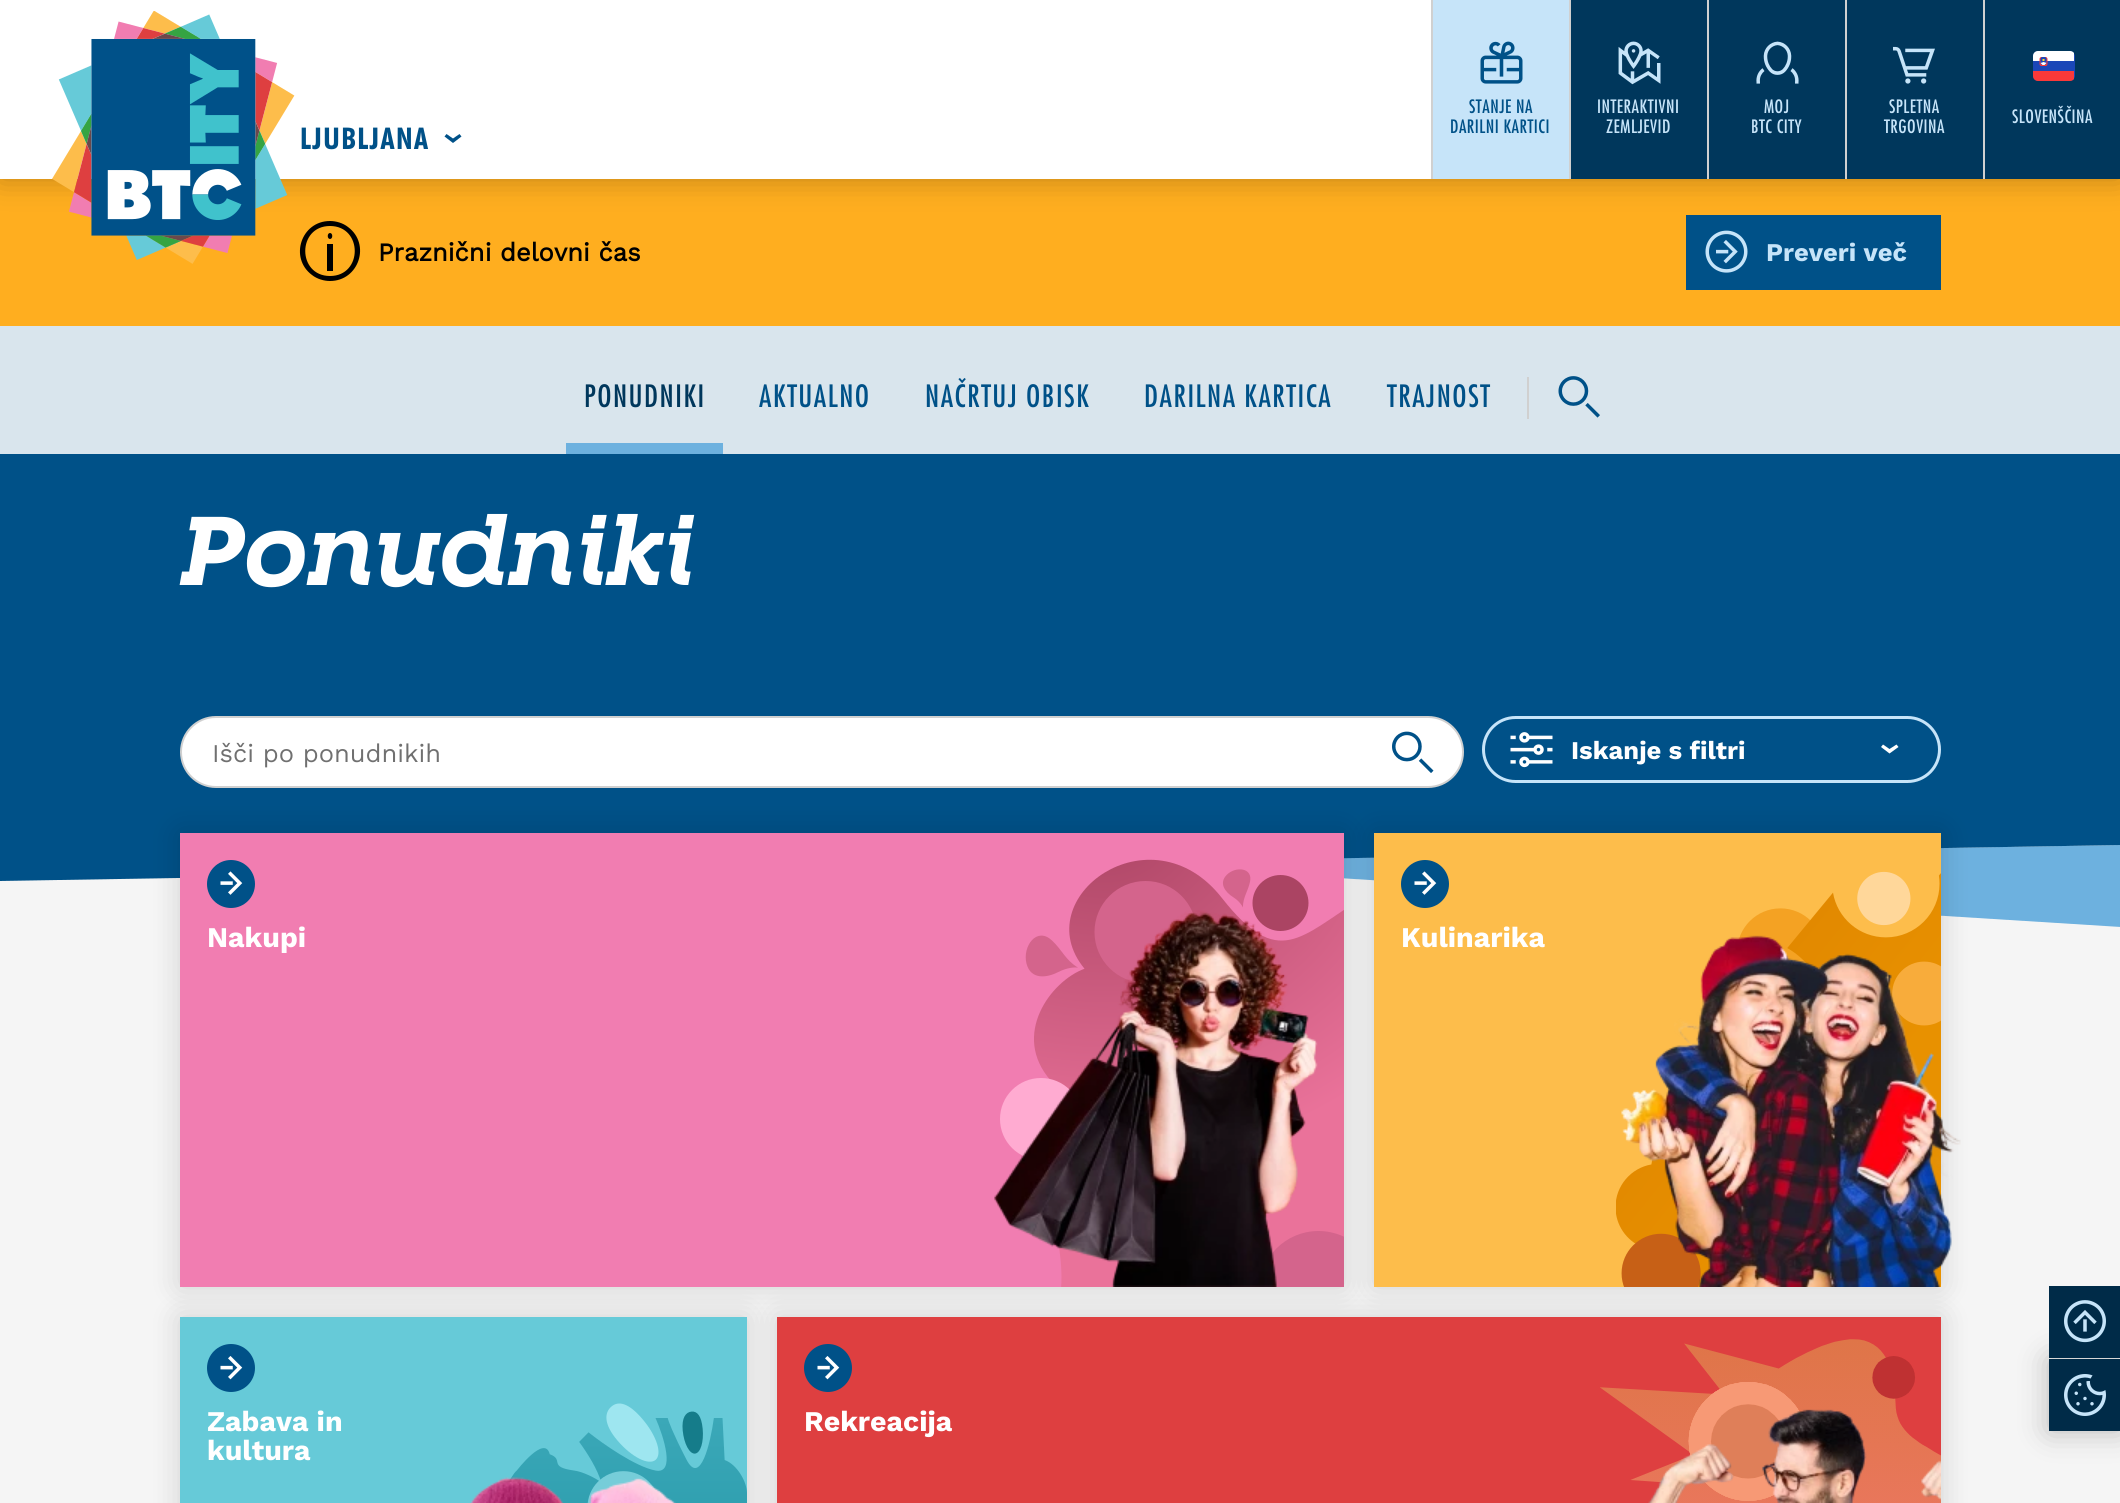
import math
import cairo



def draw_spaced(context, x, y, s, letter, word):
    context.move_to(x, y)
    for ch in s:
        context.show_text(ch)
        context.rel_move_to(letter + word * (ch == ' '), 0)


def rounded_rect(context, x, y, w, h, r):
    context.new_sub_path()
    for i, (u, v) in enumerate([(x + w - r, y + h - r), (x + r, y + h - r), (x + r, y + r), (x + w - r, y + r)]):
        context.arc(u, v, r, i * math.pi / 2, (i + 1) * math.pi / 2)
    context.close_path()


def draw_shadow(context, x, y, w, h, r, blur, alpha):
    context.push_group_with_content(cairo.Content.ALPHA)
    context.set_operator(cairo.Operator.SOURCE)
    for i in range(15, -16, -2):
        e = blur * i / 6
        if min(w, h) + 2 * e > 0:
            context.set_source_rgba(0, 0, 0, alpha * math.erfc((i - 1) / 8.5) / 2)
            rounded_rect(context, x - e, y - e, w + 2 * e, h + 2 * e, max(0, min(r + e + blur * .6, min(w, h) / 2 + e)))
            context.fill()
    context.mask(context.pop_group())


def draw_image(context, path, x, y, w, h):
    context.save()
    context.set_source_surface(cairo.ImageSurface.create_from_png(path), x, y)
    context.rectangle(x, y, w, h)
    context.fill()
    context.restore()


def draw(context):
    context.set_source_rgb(245 / 255, 245 / 255, 245 / 255)
    context.paint()
    context.set_source_rgb(1, 174 / 255, 31 / 255)
    context.rectangle(0, 179, 2120, 147)
    context.fill()
    context.set_source_rgb(0, 0, 0)
    context.new_path()
    context.move_to(330, 221)
    context.curve_to(301, 221, 289, 258, 312, 275)
    context.curve_to(317, 279, 324, 281, 330, 281)
    context.curve_to(359, 281, 371, 244, 348, 227)
    context.curve_to(343, 223, 336, 221, 330, 221)
    context.close_path()
    context.move_to(330, 276)
    context.curve_to(297, 276, 297, 226, 330, 226)
    context.curve_to(363, 226, 363, 276, 330, 276)
    context.close_path()
    context.move_to(327, 244)
    context.line_to(333, 244)
    context.line_to(333, 271)
    context.line_to(327, 271)
    context.close_path()
    context.move_to(330, 233)
    context.curve_to(327, 233, 327, 239, 330, 239)
    context.curve_to(333, 239, 333, 233, 330, 233)
    context.close_path()
    context.fill()
    context.set_source_rgb(0, 81 / 255, 136 / 255)
    context.rectangle(1686, 215, 255, 75)
    context.fill()
    context.set_source_rgb(0, 0, 0)
    draw_shadow(context, 0, 0, 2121, 179, 0, 15, 0.25)
    context.set_source_rgb(1, 1, 1)
    context.rectangle(0, 0, 1431, 179)
    context.fill()
    context.set_source_rgb(0, 55 / 255, 92 / 255)
    context.rectangle(1571, 0, 549, 179)
    context.fill()
    context.set_source_rgb(198 / 255, 228 / 255, 249 / 255)
    context.rectangle(1433, 0, 136, 179)
    context.fill()
    context.set_source_rgb(208 / 255, 208 / 255, 208 / 255)
    context.rectangle(1431, 0, 2, 179)
    context.fill()
    draw_image(context, "images/1.png", 1480, 41, 43, 43)
    context.rectangle(1569, 0, 2, 179)
    context.fill()
    draw_image(context, "images/2.png", 1618, 41, 43, 44)
    context.rectangle(1707, 0, 2, 179)
    context.fill()
    draw_image(context, "images/3.png", 1756, 41, 43, 43)
    context.rectangle(1845, 0, 2, 179)
    context.fill()
    draw_image(context, "images/4.png", 1893, 46, 42, 38)
    context.rectangle(1983, 0, 2, 179)
    context.fill()
    draw_image(context, "images/5.png", 2033, 51, 42, 30)
    draw_image(context, "images/6.png", 52, 11, 243, 253)
    context.set_source_rgb(0, 81 / 255, 136 / 255)
    context.new_path()
    context.move_to(453, 143)
    context.line_to(444.5, 136.5)
    context.line_to(446.5, 134)
    context.line_to(453, 138.5)
    context.line_to(459.5, 134)
    context.line_to(461.5, 136.5)
    context.close_path()
    context.fill()
    draw_image(context, "images/7.png", 1705, 230, 43, 43)
    context.set_source_rgb(217 / 255, 229 / 255, 237 / 255)
    context.rectangle(0, 326, 2120, 129)
    context.fill()
    context.set_source_rgb(109 / 255, 177 / 255, 223 / 255)
    context.rectangle(566, 443, 157, 12)
    context.fill()
    context.set_source_rgb(208 / 255, 208 / 255, 208 / 255)
    context.rectangle(1527, 377, 2, 42)
    context.fill()
    draw_image(context, "images/8.png", 1558, 376, 42, 42)
    context.set_source_rgb(109 / 255, 177 / 255, 223 / 255)
    context.new_path()
    context.move_to(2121, 845)
    context.line_to(1082, 862)
    context.line_to(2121, 927)
    context.close_path()
    context.fill()
    context.set_source_rgb(0, 81 / 255, 136 / 255)
    context.new_path()
    context.move_to(0, 454)
    context.line_to(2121, 454)
    context.line_to(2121, 845)
    context.line_to(0, 881)
    context.close_path()
    context.fill()
    context.set_source_rgb(1, 1, 1)
    rounded_rect(context, 181, 717, 1282, 70, 35)
    context.fill_preserve()
    context.set_source_rgb(208 / 255, 208 / 255, 208 / 255)
    context.stroke()
    draw_image(context, "images/9.png", 1392, 731, 42, 42)
    rounded_rect(context, 1483.5, 717.5, 456, 64, 32)
    context.set_source_rgb(198 / 255, 228 / 255, 249 / 255)
    context.set_line_width(3)
    context.stroke()
    draw_image(context, "images/10.png", 1510, 732, 43, 36)
    context.set_source_rgb(1, 1, 1)
    context.new_path()
    context.move_to(1889.5, 753.5)
    context.line_to(1881, 747)
    context.line_to(1883, 744.5)
    context.line_to(1889.5, 749)
    context.line_to(1896.5, 744.5)
    context.line_to(1898.5, 747)
    context.close_path()
    context.fill()
    context.set_source_rgb(0, 0, 0)
    draw_shadow(context, 180, 833, 1164, 454, 0, 15, 0.15)
    context.set_source_rgb(241 / 255, 125 / 255, 177 / 255)
    context.rectangle(180, 833, 1164, 454)
    context.fill()
    draw_image(context, "images/11.png", 1000, 859, 344, 428)
    context.set_source_rgb(0, 81 / 255, 136 / 255)
    context.arc(231, 884, 24, 0, 2 * math.pi)
    context.fill()
    draw_image(context, "images/12.png", 220, 871, 23, 24)
    draw_image(context, "images/13.png", 994, 910, 324, 377)
    context.set_source_rgb(0, 0, 0)
    draw_shadow(context, 1374, 833, 567, 454, 0, 15, 0.15)
    context.set_source_rgb(253 / 255, 189 / 255, 75 / 255)
    context.rectangle(1374, 833, 567, 454)
    context.fill()
    context.set_source_rgb(0, 81 / 255, 136 / 255)
    context.arc(1425, 884, 24, 0, 2 * math.pi)
    context.fill()
    draw_image(context, "images/12.png", 1414, 871, 23, 24)
    draw_image(context, "images/14.png", 1616, 871, 325, 416)
    draw_image(context, "images/15.png", 1621, 935, 340, 352)
    context.set_source_rgb(0, 0, 0)
    draw_shadow(context, 180, 1317, 567, 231, 0, 15, 0.15)
    context.set_source_rgb(102 / 255, 202 / 255, 216 / 255)
    context.rectangle(180, 1317, 567, 186)
    context.fill()
    context.set_source_rgb(0, 81 / 255, 136 / 255)
    context.arc(231, 1368, 24, 0, 2 * math.pi)
    context.fill()
    draw_image(context, "images/16.png", 220, 1356, 23, 24)
    draw_image(context, "images/17.png", 509, 1403, 238, 100)
    draw_image(context, "images/18.png", 470, 1477, 206, 26)
    context.set_source_rgb(0, 0, 0)
    draw_shadow(context, 777, 1317, 1164, 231, 0, 15, 0.15)
    context.set_source_rgb(222 / 255, 63 / 255, 64 / 255)
    context.rectangle(777, 1317, 1164, 186)
    context.fill()
    draw_image(context, "images/19.png", 1600, 1339, 341, 164)
    context.set_source_rgb(0, 81 / 255, 136 / 255)
    context.arc(828, 1368, 24, 0, 2 * math.pi)
    context.fill()
    draw_image(context, "images/16.png", 817, 1356, 23, 24)
    draw_image(context, "images/20.png", 1648, 1409, 293, 94)
    context.set_source_rgb(0, 0, 0)
    draw_shadow(context, 2049, 1359, 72, 72, 0, 15, 0.25)
    context.set_source_rgb(0, 43 / 255, 72 / 255)
    context.rectangle(2049, 1286, 71, 72)
    context.fill()
    draw_image(context, "images/21.png", 2064, 1300, 42, 43)
    context.rectangle(2049, 1359, 71, 72)
    context.fill()
    draw_image(context, "images/22.png", 2064, 1374, 42, 42)
    context.select_font_face("Futura Medium")
    context.set_font_size(18)
    context.set_source_rgb(0, 81 / 255, 136 / 255)
    draw_spaced(context, 1469, 113, "STANJE NA", 0.5, 0)
    draw_spaced(context, 1450, 133, "DARILNI KARTICI", 0.5, 0)
    context.set_source_rgb(198 / 255, 228 / 255, 249 / 255)
    draw_spaced(context, 1597, 113, "INTERAKTIVNI", 0.5, 0)
    draw_spaced(context, 1606, 133, "ZEMLJEVID", 0.5, 0)
    draw_spaced(context, 1764, 113, "MOJ", 0.5, 0)
    draw_spaced(context, 1751, 133, "BTC CITY", 0.5, 0)
    draw_spaced(context, 1889, 113, "SPLETNA", 0.5, 0)
    draw_spaced(context, 1884, 133, "TRGOVINA", 0.5, 0)
    draw_spaced(context, 2012, 123, "SLOVENŠČINA", 0.5, 0)
    context.select_font_face("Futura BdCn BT", cairo.FontSlant.NORMAL, cairo.FontWeight.BOLD)
    context.set_font_size(30)
    context.set_source_rgb(0, 81 / 255, 136 / 255)
    draw_spaced(context, 300, 149, "LJUBLJANA", 1.5, 0)
    context.select_font_face("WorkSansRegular", cairo.FontSlant.NORMAL, cairo.FontWeight.BOLD)
    context.set_font_size(25.5)
    context.set_source_rgb(0, 0, 0)
    context.move_to(378, 261)
    context.show_text("Praznični delovni čas")
    context.select_font_face("Work Sans", cairo.FontSlant.NORMAL, cairo.FontWeight.BOLD)
    context.set_source_rgb(198 / 255, 228 / 255, 249 / 255)
    context.move_to(1766, 261)
    context.show_text("Preveri več")
    context.select_font_face("Futura Medium")
    context.set_font_size(30)
    context.set_source_rgb(0, 55 / 255, 92 / 255)
    draw_spaced(context, 584, 407, "PONUDNIKI", 1.5, 0)
    context.set_source_rgb(0, 81 / 255, 136 / 255)
    draw_spaced(context, 759, 407, "AKTUALNO", 1.5, 0)
    draw_spaced(context, 925, 407, "NAČRTUJ OBISK", 1.5, 0)
    draw_spaced(context, 1144, 407, "DARILNA KARTICA", 1.5, 0)
    draw_spaced(context, 1387, 407, "TRAJNOST", 1.5, 0)
    context.select_font_face("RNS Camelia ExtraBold", cairo.FontSlant.ITALIC)
    context.set_font_size(96)
    context.set_source_rgb(1, 1, 1)
    context.move_to(180, 585)
    context.show_text("Ponudniki")
    context.select_font_face("Work Sans")
    context.set_font_size(25.5)
    context.set_source_rgb(112 / 255, 112 / 255, 112 / 255)
    context.move_to(212, 762)
    context.show_text("Išči po ponudnikih")
    context.select_font_face("Work Sans", cairo.FontSlant.NORMAL, cairo.FontWeight.BOLD)
    context.set_source_rgb(1, 1, 1)
    context.move_to(1571, 759)
    context.show_text("Iskanje s filtri")
    context.set_font_size(28.5)
    context.move_to(207, 947)
    context.show_text("Nakupi")
    context.move_to(1401, 947)
    context.show_text("Kulinarika")
    context.move_to(207, 1431)
    context.show_text("Zabava in")
    context.move_to(207, 1460)
    context.show_text("kultura")
    context.move_to(804, 1431)
    context.show_text("Rekreacija")


surface = cairo.ImageSurface(cairo.Format.RGB24, 2120, 1503)
context = cairo.Context(surface)
options = cairo.FontOptions()
options.set_hint_metrics(cairo.HintMetrics.OFF)
options.set_hint_style(cairo.HintStyle.NONE)
context.set_font_options(options)
context.set_miter_limit(4)
draw(context)
surface.write_to_png("out.png")
